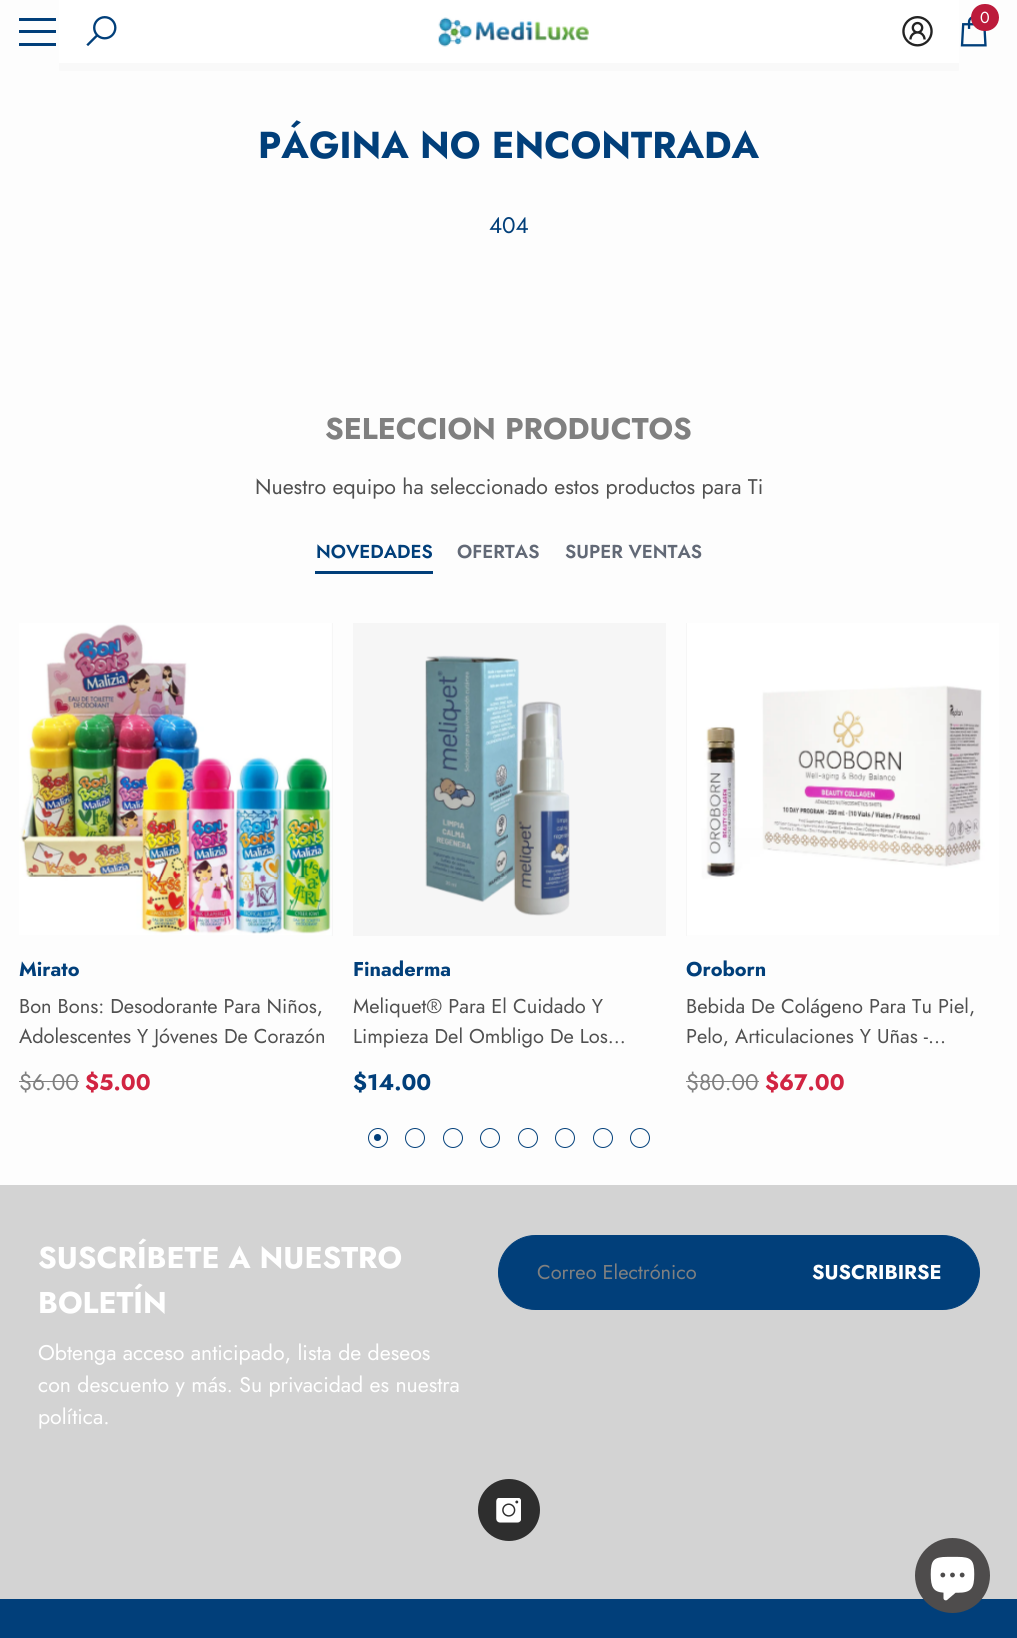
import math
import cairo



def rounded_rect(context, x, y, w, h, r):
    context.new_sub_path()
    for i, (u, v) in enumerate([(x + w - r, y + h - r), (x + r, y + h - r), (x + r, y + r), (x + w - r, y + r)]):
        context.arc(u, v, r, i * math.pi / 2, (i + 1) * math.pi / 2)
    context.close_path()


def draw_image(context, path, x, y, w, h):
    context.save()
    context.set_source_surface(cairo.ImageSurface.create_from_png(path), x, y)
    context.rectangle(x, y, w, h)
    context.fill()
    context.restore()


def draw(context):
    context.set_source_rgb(253 / 255, 253 / 255, 253 / 255)
    context.paint()
    context.set_source_rgb(249 / 255, 249 / 255, 249 / 255)
    rounded_rect(context, 59, -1, 900, 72, 1)
    context.fill()
    context.set_source_rgb(1, 1, 1)
    context.rectangle(59, 0, 900, 63)
    context.fill()
    context.set_source_rgb(1 / 255, 63 / 255, 122 / 255)
    context.rectangle(19, 30, 37, 3)
    context.fill()
    context.rectangle(19, 18, 37, 3)
    context.fill()
    context.rectangle(19, 43, 37, 3)
    context.fill()
    draw_image(context, "images/1.png", 86, 16, 31, 30)
    draw_image(context, "images/2.png", 438, 17, 151, 30)
    draw_image(context, "images/3.png", 902, 16, 31, 31)
    draw_image(context, "images/4.png", 960, 16, 27, 31)
    context.set_source_rgb(188 / 255, 27 / 255, 59 / 255)
    rounded_rect(context, 971, 4, 28, 27, 13.5)
    context.fill()
    context.set_source_rgb(1 / 255, 63 / 255, 122 / 255)
    context.rectangle(315, 571, 118, 3)
    context.fill()
    context.set_source_rgb(246 / 255, 246 / 255, 246 / 255)
    context.rectangle(19, 623, 314, 313)
    context.fill()
    draw_image(context, "images/5.png", 19, 623, 313, 313)
    context.set_source_rgb(128 / 255, 128 / 255, 128 / 255)
    context.rectangle(19, 1081, 60, 1)
    context.fill()
    context.set_source_rgb(246 / 255, 246 / 255, 246 / 255)
    context.rectangle(353, 623, 313, 313)
    context.fill()
    draw_image(context, "images/6.png", 425, 655, 145, 261)
    context.rectangle(686, 623, 314, 313)
    context.fill()
    draw_image(context, "images/7.png", 687, 623, 313, 313)
    context.set_source_rgb(128 / 255, 128 / 255, 128 / 255)
    context.rectangle(686, 1081, 73, 1)
    context.fill()
    context.arc(378, 1138, 9.5, 0, 2 * math.pi)
    context.set_source_rgb(1 / 255, 63 / 255, 122 / 255)
    context.set_line_width(1)
    context.stroke()
    context.arc(377.5, 1137.5, 3.5, 0, 2 * math.pi)
    context.fill()
    context.arc(415, 1138, 9.5, 0, 2 * math.pi)
    context.stroke()
    context.arc(453, 1138, 9.5, 0, 2 * math.pi)
    context.stroke()
    context.arc(490, 1138, 9.5, 0, 2 * math.pi)
    context.stroke()
    context.arc(528, 1138, 9.5, 0, 2 * math.pi)
    context.stroke()
    context.arc(565, 1138, 9.5, 0, 2 * math.pi)
    context.stroke()
    context.arc(603, 1138, 9.5, 0, 2 * math.pi)
    context.stroke()
    context.arc(640, 1138, 9.5, 0, 2 * math.pi)
    context.stroke()
    context.set_source_rgb(211 / 255, 211 / 255, 211 / 255)
    context.rectangle(0, 1185, 1017, 414)
    context.fill()
    context.set_source_rgb(1 / 255, 63 / 255, 122 / 255)
    rounded_rect(context, 498.5, 1235.5, 481, 74, 37)
    context.fill_preserve()
    context.stroke()
    context.set_source_rgb(46 / 255, 46 / 255, 46 / 255)
    context.arc(509, 1510, 31, 0, 2 * math.pi)
    context.fill()
    draw_image(context, "images/8.png", 496, 1498, 25, 25)
    context.set_source_rgb(1 / 255, 63 / 255, 122 / 255)
    context.rectangle(0, 1599, 1017, 39)
    context.fill()
    context.set_source_rgb(78 / 255, 76 / 255, 76 / 255)
    context.arc(952.5, 1575.5, 37.5, 0, 2 * math.pi)
    context.fill()
    draw_image(context, "images/9.png", 930, 1556, 45, 45)
    context.select_font_face("Jost")
    context.set_font_size(16)
    context.set_source_rgb(1, 1, 1)
    context.move_to(980, 23)
    context.show_text("0")
    context.select_font_face("Jost", cairo.FontSlant.NORMAL, cairo.FontWeight.BOLD)
    context.set_font_size(37.5)
    context.set_source_rgb(1 / 255, 63 / 255, 122 / 255)
    context.move_to(258, 158)
    context.show_text("PÁGINA NO ENCONTRADA")
    context.select_font_face("Jost")
    context.set_font_size(22.5)
    context.move_to(489, 233)
    context.show_text("404")
    context.select_font_face("Jost", cairo.FontSlant.NORMAL, cairo.FontWeight.BOLD)
    context.set_font_size(30)
    context.set_source_rgb(128 / 255, 128 / 255, 128 / 255)
    context.move_to(325, 439)
    context.show_text("SELECCION PRODUCTOS")
    context.select_font_face("Jost")
    context.set_font_size(21.25)
    context.set_source_rgb(80 / 255, 80 / 255, 80 / 255)
    context.move_to(255, 494)
    context.show_text("Nuestro equipo ha seleccionado estos productos para Ti")
    context.select_font_face("Jost SemiBold")
    context.set_font_size(18.75)
    context.set_source_rgb(1 / 255, 63 / 255, 122 / 255)
    context.move_to(316, 558)
    context.show_text("NOVEDADES")
    context.set_source_rgb(98 / 255, 105 / 255, 118 / 255)
    context.move_to(457, 558)
    context.show_text("OFERTAS")
    context.move_to(565, 558)
    context.show_text("SUPER VENTAS")
    context.select_font_face("Jost", cairo.FontSlant.NORMAL, cairo.FontWeight.BOLD)
    context.set_font_size(20)
    context.set_source_rgb(1 / 255, 63 / 255, 122 / 255)
    context.move_to(19, 976)
    context.show_text("Mirato")
    context.select_font_face("Jost")
    context.set_source_rgb(80 / 255, 80 / 255, 80 / 255)
    context.move_to(19, 1013)
    context.show_text("Bon Bons: Desodorante Para Niños,")
    context.move_to(19, 1043)
    context.show_text("Adolescentes Y Jóvenes De Corazón")
    context.set_font_size(22.5)
    context.set_source_rgb(128 / 255, 128 / 255, 128 / 255)
    context.move_to(19, 1090)
    context.show_text("$6.00")
    context.select_font_face("Jost", cairo.FontSlant.NORMAL, cairo.FontWeight.BOLD)
    context.set_source_rgb(209 / 255, 36 / 255, 66 / 255)
    context.move_to(85, 1090)
    context.show_text("$5.00")
    context.set_font_size(20)
    context.set_source_rgb(1 / 255, 63 / 255, 122 / 255)
    context.move_to(353, 976)
    context.show_text("Finaderma")
    context.select_font_face("Jost")
    context.set_source_rgb(80 / 255, 80 / 255, 80 / 255)
    context.move_to(353, 1013)
    context.show_text("Meliquet® Para El Cuidado Y")
    context.move_to(353, 1043)
    context.show_text("Limpieza Del Ombligo De Los…")
    context.select_font_face("Jost", cairo.FontSlant.NORMAL, cairo.FontWeight.BOLD)
    context.set_font_size(22.5)
    context.set_source_rgb(1 / 255, 63 / 255, 122 / 255)
    context.move_to(353, 1090)
    context.show_text("$14.00")
    context.set_font_size(20)
    context.move_to(686, 976)
    context.show_text("Oroborn")
    context.select_font_face("Jost")
    context.set_source_rgb(80 / 255, 80 / 255, 80 / 255)
    context.move_to(686, 1013)
    context.show_text("Bebida De Colágeno Para Tu Piel,")
    context.move_to(686, 1043)
    context.show_text("Pelo, Articulaciones Y Uñas -…")
    context.set_font_size(22.5)
    context.set_source_rgb(128 / 255, 128 / 255, 128 / 255)
    context.move_to(686, 1090)
    context.show_text("$80.00")
    context.select_font_face("Jost", cairo.FontSlant.NORMAL, cairo.FontWeight.BOLD)
    context.set_source_rgb(209 / 255, 36 / 255, 66 / 255)
    context.move_to(765, 1090)
    context.show_text("$67.00")
    context.set_font_size(30)
    context.set_source_rgb(1, 1, 1)
    context.move_to(38, 1268)
    context.show_text("SUSCRÍBETE A NUESTRO")
    context.move_to(38, 1313)
    context.show_text("BOLETÍN")
    context.select_font_face("Jost")
    context.set_font_size(21.25)
    context.move_to(38, 1360)
    context.show_text("Obtenga acceso anticipado, lista de deseos")
    context.move_to(38, 1392)
    context.show_text("con descuento y más. Su privacidad es nuestra")
    context.move_to(38, 1424)
    context.show_text("política.")
    context.set_font_size(20)
    context.set_source_rgb(128 / 255, 128 / 255, 128 / 255)
    context.move_to(537, 1279)
    context.show_text("Correo Electrónico")
    context.select_font_face("Jost", cairo.FontSlant.NORMAL, cairo.FontWeight.BOLD)
    context.set_source_rgb(1, 1, 1)
    context.move_to(812, 1279)
    context.show_text("SUSCRIBIRSE")


surface = cairo.ImageSurface(cairo.Format.RGB24, 1017, 1638)
context = cairo.Context(surface)
options = cairo.FontOptions()
options.set_hint_metrics(cairo.HintMetrics.OFF)
options.set_hint_style(cairo.HintStyle.NONE)
context.set_font_options(options)
context.set_miter_limit(4)
draw(context)
surface.write_to_png("out.png")
